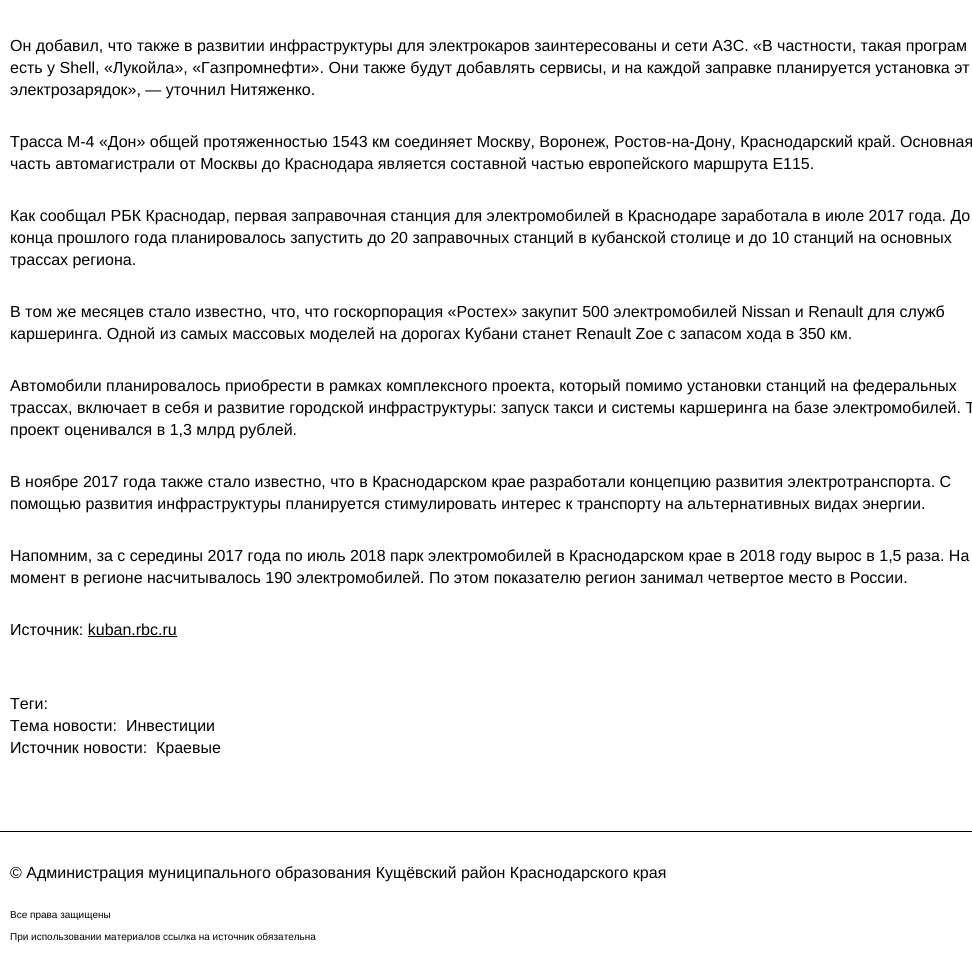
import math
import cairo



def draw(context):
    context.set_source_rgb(1, 1, 1)
    context.paint()
    context.set_source_rgb(0, 0, 0)
    context.rectangle(88, 636, 89, 1)
    context.fill()
    context.rectangle(0, 831, 972, 1)
    context.fill()
    context.select_font_face("Liberation Sans")
    context.set_font_size(16)
    context.move_to(10, 51)
    context.show_text("Он добавил, что также в развитии инфраструктуры для электрокаров заинтересованы и сети АЗС. «В частности, такая програм")
    context.move_to(10, 73)
    context.show_text("есть у Shell, «Лукойла», «Газпромнефти». Они также будут добавлять сервисы, и на каждой заправке планируется установка эт")
    context.move_to(10, 95)
    context.show_text("электрозарядок», — уточнил Нитяженко.")
    context.move_to(10, 147)
    context.show_text("Трасса М-4 «Дон» общей протяженностью 1543 км соединяет Москву, Воронеж, Ростов-на-Дону, Краснодарский край. Основная")
    context.move_to(10, 169)
    context.show_text("часть автомагистрали от Москвы до Краснодара является составной частью европейского маршрута E115.")
    context.move_to(10, 221)
    context.show_text("Как сообщал РБК Краснодар, первая заправочная станция для электромобилей в Краснодаре заработала в июле 2017 года. До")
    context.move_to(10, 243)
    context.show_text("конца прошлого года планировалось запустить до 20 заправочных станций в кубанской столице и до 10 станций на основных")
    context.move_to(10, 265)
    context.show_text("трассах региона.")
    context.move_to(10, 317)
    context.show_text("В том же месяцев стало известно, что, что госкорпорация «Ростех» закупит 500 электромобилей Nissan и Renault для служб")
    context.move_to(10, 339)
    context.show_text("каршеринга. Одной из самых массовых моделей на дорогах Кубани станет Renault Zoe c запасом хода в 350 км.")
    context.move_to(10, 391)
    context.show_text("Автомобили планировалось приобрести в рамках комплексного проекта, который помимо установки станций на федеральных")
    context.move_to(10, 413)
    context.show_text("трассах, включает в себя и развитие городской инфраструктуры: запуск такси и системы каршеринга на базе электромобилей. Т")
    context.move_to(10, 435)
    context.show_text("проект оценивался в 1,3 млрд рублей.")
    context.move_to(10, 487)
    context.show_text("В ноябре 2017 года также стало известно, что в Краснодарском крае разработали концепцию развития электротранспорта. С")
    context.move_to(10, 509)
    context.show_text("помощью развития инфраструктуры планируется стимулировать интерес к транспорту на альтернативных видах энергии.")
    context.move_to(10, 561)
    context.show_text("Напомним, за с середины 2017 года по июль 2018 парк электромобилей в Краснодарском крае в 2018 году вырос в 1,5 раза. На")
    context.move_to(10, 583)
    context.show_text("момент в регионе насчитывалось 190 электромобилей. По этом показателю регион занимал четвертое место в России.")
    context.move_to(10, 635)
    context.show_text("Источник: kuban.rbc.ru")
    context.move_to(10, 709)
    context.show_text("Теги:")
    context.move_to(10, 731)
    context.show_text("Тема новости:")
    context.move_to(126, 731)
    context.show_text("Инвестиции")
    context.move_to(10, 753)
    context.show_text("Источник новости:")
    context.move_to(156, 753)
    context.show_text("Краевые")
    context.move_to(10, 878)
    context.show_text("© Администрация муниципального образования Кущёвский район Краснодарского края")
    context.set_font_size(10)
    context.move_to(10, 918)
    context.show_text("Все права защищены")
    context.move_to(10, 940)
    context.show_text("При использовании материалов ссылка на источник обязательна")


surface = cairo.ImageSurface(cairo.Format.RGB24, 972, 972)
context = cairo.Context(surface)
options = cairo.FontOptions()
options.set_hint_metrics(cairo.HintMetrics.OFF)
options.set_hint_style(cairo.HintStyle.NONE)
context.set_font_options(options)
context.set_miter_limit(4)
draw(context)
surface.write_to_png("out.png")
